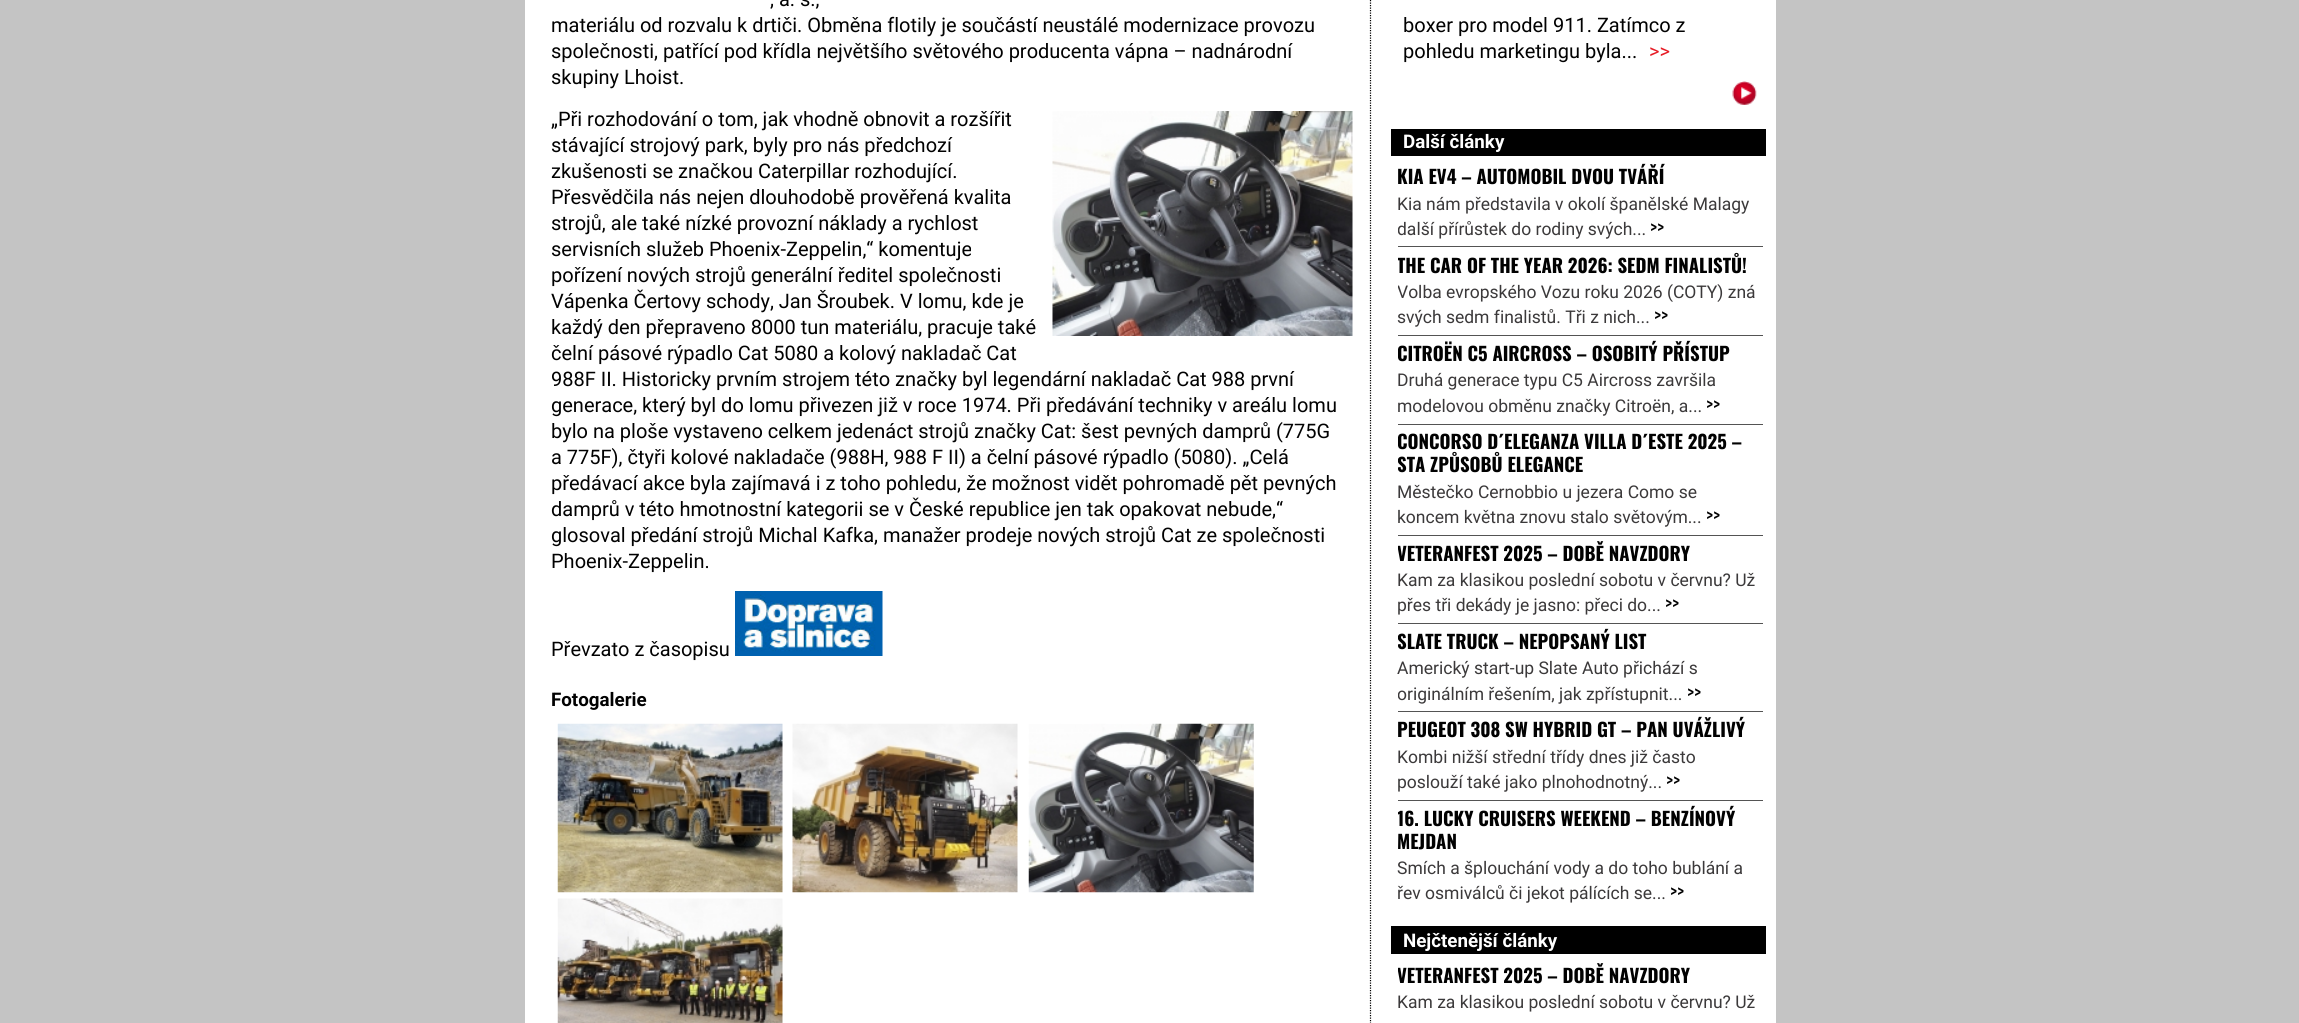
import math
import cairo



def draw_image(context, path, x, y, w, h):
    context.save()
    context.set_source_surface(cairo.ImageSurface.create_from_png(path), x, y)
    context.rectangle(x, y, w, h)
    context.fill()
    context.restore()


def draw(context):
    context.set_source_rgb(196 / 255, 196 / 255, 196 / 255)
    context.paint()
    context.set_source_rgb(1, 1, 1)
    context.rectangle(525, 0, 1251, 1023)
    context.fill()
    context.new_path()
    context.move_to(1370.5, -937.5)
    context.line_to(1370.5, 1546)
    context.set_source_rgb(0, 0, 0)
    context.set_line_width(1.2)
    context.set_dash([1.25, 1.25])
    context.stroke()
    draw_image(context, "images/1.png", 1052, 111, 301, 225)
    draw_image(context, "images/2.png", 735, 591, 148, 65)
    draw_image(context, "images/3.png", 557, 723, 226, 170)
    draw_image(context, "images/4.png", 792, 723, 226, 170)
    draw_image(context, "images/5.png", 1028, 723, 226, 170)
    draw_image(context, "images/6.png", 557, 898, 226, 125)
    draw_image(context, "images/7.png", 1732, 81, 25, 24)
    context.rectangle(1391, 129, 375, 27)
    context.fill()
    context.set_source_rgb(84 / 255, 84 / 255, 84 / 255)
    context.rectangle(1398, 246, 365, 1)
    context.fill()
    context.rectangle(1398, 335, 365, 1)
    context.fill()
    context.rectangle(1398, 424, 365, 1)
    context.fill()
    context.rectangle(1398, 535, 365, 1)
    context.fill()
    context.rectangle(1398, 623, 365, 1)
    context.fill()
    context.rectangle(1398, 711, 365, 1)
    context.fill()
    context.rectangle(1398, 800, 365, 1)
    context.fill()
    context.set_source_rgb(0, 0, 0)
    context.rectangle(1391, 926, 375, 28)
    context.fill()
    context.select_font_face("Roboto")
    context.set_font_size(20)
    context.set_source_rgb(1 / 255, 1 / 255, 1 / 255)
    context.move_to(770, 6)
    context.show_text(", a. s.,")
    context.move_to(551, 32)
    context.show_text("materiálu od rozvalu k drtiči. Obměna flotily je součástí neustálé modernizace provozu")
    context.move_to(551, 58)
    context.show_text("společnosti, patřící pod křídla největšího světového producenta vápna – nadnárodní")
    context.move_to(551, 84)
    context.show_text("skupiny Lhoist.")
    context.move_to(551, 126)
    context.show_text("„Při rozhodování o tom, jak vhodně obnovit a rozšířit")
    context.move_to(551, 152)
    context.show_text("stávající strojový park, byly pro nás předchozí")
    context.move_to(551, 178)
    context.show_text("zkušenosti se značkou Caterpillar rozhodující.")
    context.move_to(551, 204)
    context.show_text("Přesvědčila nás nejen dlouhodobě prověřená kvalita")
    context.move_to(551, 230)
    context.show_text("strojů, ale také nízké provozní náklady a rychlost")
    context.move_to(551, 256)
    context.show_text("servisních služeb Phoenix-Zeppelin,“ komentuje")
    context.move_to(551, 282)
    context.show_text("pořízení nových strojů generální ředitel společnosti")
    context.move_to(551, 308)
    context.show_text("Vápenka Čertovy schody, Jan Šroubek. V lomu, kde je")
    context.move_to(551, 334)
    context.show_text("každý den přepraveno 8000 tun materiálu, pracuje také")
    context.move_to(551, 360)
    context.show_text("čelní pásové rýpadlo Cat 5080 a kolový nakladač Cat")
    context.move_to(551, 386)
    context.show_text("988F II. Historicky prvním strojem této značky byl legendární nakladač Cat 988 první")
    context.move_to(551, 412)
    context.show_text("generace, který byl do lomu přivezen již v roce 1974. Při předávání techniky v areálu lomu")
    context.move_to(551, 438)
    context.show_text("bylo na ploše vystaveno celkem jedenáct strojů značky Cat: šest pevných damprů (775G")
    context.move_to(551, 464)
    context.show_text("a 775F), čtyři kolové nakladače (988H, 988 F II) a čelní pásové rýpadlo (5080). „Celá")
    context.move_to(551, 490)
    context.show_text("předávací akce byla zajímavá i z toho pohledu, že možnost vidět pohromadě pět pevných")
    context.move_to(551, 516)
    context.show_text("damprů v této hmotnostní kategorii se v České republice jen tak opakovat nebude,“")
    context.move_to(551, 542)
    context.show_text("glosoval předání strojů Michal Kafka, manažer prodeje nových strojů Cat ze společnosti")
    context.move_to(551, 568)
    context.show_text("Phoenix-Zeppelin.")
    context.move_to(551, 656)
    context.show_text("Převzato z časopisu")
    context.select_font_face("Roboto", cairo.FontSlant.NORMAL, cairo.FontWeight.BOLD)
    context.set_font_size(18.75)
    context.move_to(551, 706)
    context.show_text("Fotogalerie")
    context.select_font_face("Roboto")
    context.set_font_size(20)
    context.move_to(1403, 32)
    context.show_text("boxer pro model 911. Zatímco z")
    context.move_to(1403, 58)
    context.show_text("pohledu marketingu byla...")
    context.set_source_rgb(230 / 255, 28 / 255, 37 / 255)
    context.move_to(1649, 58)
    context.show_text(">>")
    context.select_font_face("Roboto", cairo.FontSlant.NORMAL, cairo.FontWeight.BOLD)
    context.set_font_size(18.75)
    context.set_source_rgb(1, 1, 1)
    context.move_to(1403, 148)
    context.show_text("Další články")
    context.select_font_face("Oswald", cairo.FontSlant.NORMAL, cairo.FontWeight.BOLD)
    context.set_source_rgb(1 / 255, 1 / 255, 1 / 255)
    context.move_to(1397, 184)
    context.show_text("KIA EV4 – AUTOMOBIL DVOU TVÁŘÍ")
    context.select_font_face("Roboto")
    context.set_font_size(17.5)
    context.set_source_rgb(59 / 255, 57 / 255, 58 / 255)
    context.move_to(1397, 210)
    context.show_text("Kia nám představila v okolí španělské Malagy")
    context.save()
    context.rectangle(1398, 160, 365, 86)
    context.clip()
    context.move_to(1397, 235)
    context.show_text("další přírůstek do rodiny svých...")
    context.restore()
    context.select_font_face("Oswald")
    context.set_font_size(18.75)
    context.set_source_rgb(1 / 255, 1 / 255, 1 / 255)
    context.move_to(1650, 235)
    context.show_text(">>")
    context.save()
    context.rectangle(1398, 248, 365, 87)
    context.clip()
    context.select_font_face("Oswald", cairo.FontSlant.NORMAL, cairo.FontWeight.BOLD)
    context.move_to(1397, 273)
    context.show_text("THE CAR OF THE YEAR 2026: SEDM FINALISTŮ!")
    context.select_font_face("Roboto")
    context.set_font_size(17.5)
    context.set_source_rgb(59 / 255, 57 / 255, 58 / 255)
    context.move_to(1397, 298)
    context.show_text("Volba evropského Vozu roku 2026 (COTY) zná")
    context.restore()
    context.select_font_face("Roboto")
    context.set_font_size(17.5)
    context.set_source_rgb(59 / 255, 57 / 255, 58 / 255)
    context.move_to(1397, 323)
    context.show_text("svých sedm finalistů. Tři z nich...")
    context.select_font_face("Oswald")
    context.set_font_size(18.75)
    context.set_source_rgb(1 / 255, 1 / 255, 1 / 255)
    context.move_to(1654, 323)
    context.show_text(">>")
    context.save()
    context.rectangle(1398, 336, 365, 88)
    context.clip()
    context.select_font_face("Oswald", cairo.FontSlant.NORMAL, cairo.FontWeight.BOLD)
    context.move_to(1397, 361)
    context.show_text("CITROËN C5 AIRCROSS – OSOBITÝ PŘÍSTUP")
    context.restore()
    context.select_font_face("Roboto")
    context.set_font_size(17.5)
    context.set_source_rgb(59 / 255, 57 / 255, 58 / 255)
    context.move_to(1397, 386)
    context.show_text("Druhá generace typu C5 Aircross završila")
    context.move_to(1397, 412)
    context.show_text("modelovou obměnu značky Citroën, a...")
    context.select_font_face("Oswald")
    context.set_font_size(18.75)
    context.set_source_rgb(1 / 255, 1 / 255, 1 / 255)
    context.move_to(1706, 412)
    context.show_text(">>")
    context.save()
    context.rectangle(1398, 425, 365, 110)
    context.clip()
    context.select_font_face("Oswald", cairo.FontSlant.NORMAL, cairo.FontWeight.BOLD)
    context.move_to(1397, 449)
    context.show_text("CONCORSO D´ELEGANZA VILLA D´ESTE 2025 –")
    context.move_to(1397, 472)
    context.show_text("STA ZPŮSOBŮ ELEGANCE")
    context.restore()
    context.select_font_face("Roboto")
    context.set_font_size(17.5)
    context.set_source_rgb(59 / 255, 57 / 255, 58 / 255)
    context.move_to(1397, 498)
    context.show_text("Městečko Cernobbio u jezera Como se")
    context.move_to(1397, 523)
    context.show_text("koncem května znovu stalo světovým...")
    context.select_font_face("Oswald")
    context.set_font_size(18.75)
    context.set_source_rgb(1 / 255, 1 / 255, 1 / 255)
    context.move_to(1706, 523)
    context.show_text(">>")
    context.save()
    context.rectangle(1398, 536, 365, 87)
    context.clip()
    context.select_font_face("Oswald", cairo.FontSlant.NORMAL, cairo.FontWeight.BOLD)
    context.move_to(1397, 561)
    context.show_text("VETERANFEST 2025 – DOBĚ NAVZDORY")
    context.restore()
    context.select_font_face("Roboto")
    context.set_font_size(17.5)
    context.set_source_rgb(59 / 255, 57 / 255, 58 / 255)
    context.move_to(1397, 586)
    context.show_text("Kam za klasikou poslední sobotu v červnu? Už")
    context.move_to(1397, 611)
    context.show_text("přes tři dekády je jasno: přeci do...")
    context.select_font_face("Oswald")
    context.set_font_size(18.75)
    context.set_source_rgb(1 / 255, 1 / 255, 1 / 255)
    context.move_to(1665, 611)
    context.show_text(">>")
    context.save()
    context.rectangle(1398, 624, 365, 87)
    context.clip()
    context.select_font_face("Oswald", cairo.FontSlant.NORMAL, cairo.FontWeight.BOLD)
    context.move_to(1397, 649)
    context.show_text("SLATE TRUCK – NEPOPSANÝ LIST")
    context.restore()
    context.select_font_face("Roboto")
    context.set_font_size(17.5)
    context.set_source_rgb(59 / 255, 57 / 255, 58 / 255)
    context.move_to(1397, 674)
    context.show_text("Americký start-up Slate Auto přichází s")
    context.save()
    context.rectangle(1398, 624, 365, 87)
    context.clip()
    context.move_to(1397, 700)
    context.show_text("originálním řešením, jak zpřístupnit...")
    context.restore()
    context.select_font_face("Oswald")
    context.set_font_size(18.75)
    context.set_source_rgb(1 / 255, 1 / 255, 1 / 255)
    context.move_to(1687, 700)
    context.show_text(">>")
    context.select_font_face("Oswald", cairo.FontSlant.NORMAL, cairo.FontWeight.BOLD)
    context.move_to(1397, 737)
    context.show_text("PEUGEOT 308 SW HYBRID GT – PAN UVÁŽLIVÝ")
    context.select_font_face("Roboto")
    context.set_font_size(17.5)
    context.set_source_rgb(59 / 255, 57 / 255, 58 / 255)
    context.move_to(1397, 763)
    context.show_text("Kombi nižší střední třídy dnes již často")
    context.move_to(1397, 788)
    context.show_text("poslouží také jako plnohodnotný...")
    context.select_font_face("Oswald")
    context.set_font_size(18.75)
    context.set_source_rgb(1 / 255, 1 / 255, 1 / 255)
    context.move_to(1666, 788)
    context.show_text(">>")
    context.save()
    context.rectangle(1398, 801, 365, 109)
    context.clip()
    context.select_font_face("Oswald", cairo.FontSlant.NORMAL, cairo.FontWeight.BOLD)
    context.move_to(1397, 826)
    context.show_text("16. LUCKY CRUISERS WEEKEND – BENZÍNOVÝ")
    context.restore()
    context.select_font_face("Oswald", cairo.FontSlant.NORMAL, cairo.FontWeight.BOLD)
    context.move_to(1397, 849)
    context.show_text("MEJDAN")
    context.select_font_face("Roboto")
    context.set_font_size(17.5)
    context.set_source_rgb(59 / 255, 57 / 255, 58 / 255)
    context.move_to(1397, 874)
    context.show_text("Smích a šplouchání vody a do toho bublání a")
    context.move_to(1397, 899)
    context.show_text("řev osmiválců či jekot pálících se...")
    context.select_font_face("Oswald")
    context.set_font_size(18.75)
    context.set_source_rgb(1 / 255, 1 / 255, 1 / 255)
    context.move_to(1670, 899)
    context.show_text(">>")
    context.select_font_face("Roboto", cairo.FontSlant.NORMAL, cairo.FontWeight.BOLD)
    context.set_source_rgb(1, 1, 1)
    context.move_to(1403, 947)
    context.show_text("Nejčtenější články")
    context.save()
    context.rectangle(1398, 958, 365, 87)
    context.clip()
    context.select_font_face("Oswald", cairo.FontSlant.NORMAL, cairo.FontWeight.BOLD)
    context.set_source_rgb(1 / 255, 1 / 255, 1 / 255)
    context.move_to(1397, 983)
    context.show_text("VETERANFEST 2025 – DOBĚ NAVZDORY")
    context.restore()
    context.select_font_face("Roboto")
    context.set_font_size(17.5)
    context.set_source_rgb(59 / 255, 57 / 255, 58 / 255)
    context.move_to(1397, 1008)
    context.show_text("Kam za klasikou poslední sobotu v červnu? Už")


surface = cairo.ImageSurface(cairo.Format.RGB24, 2299, 1023)
context = cairo.Context(surface)
options = cairo.FontOptions()
options.set_hint_metrics(cairo.HintMetrics.OFF)
options.set_hint_style(cairo.HintStyle.NONE)
context.set_font_options(options)
context.set_miter_limit(4)
draw(context)
surface.write_to_png("out.png")
